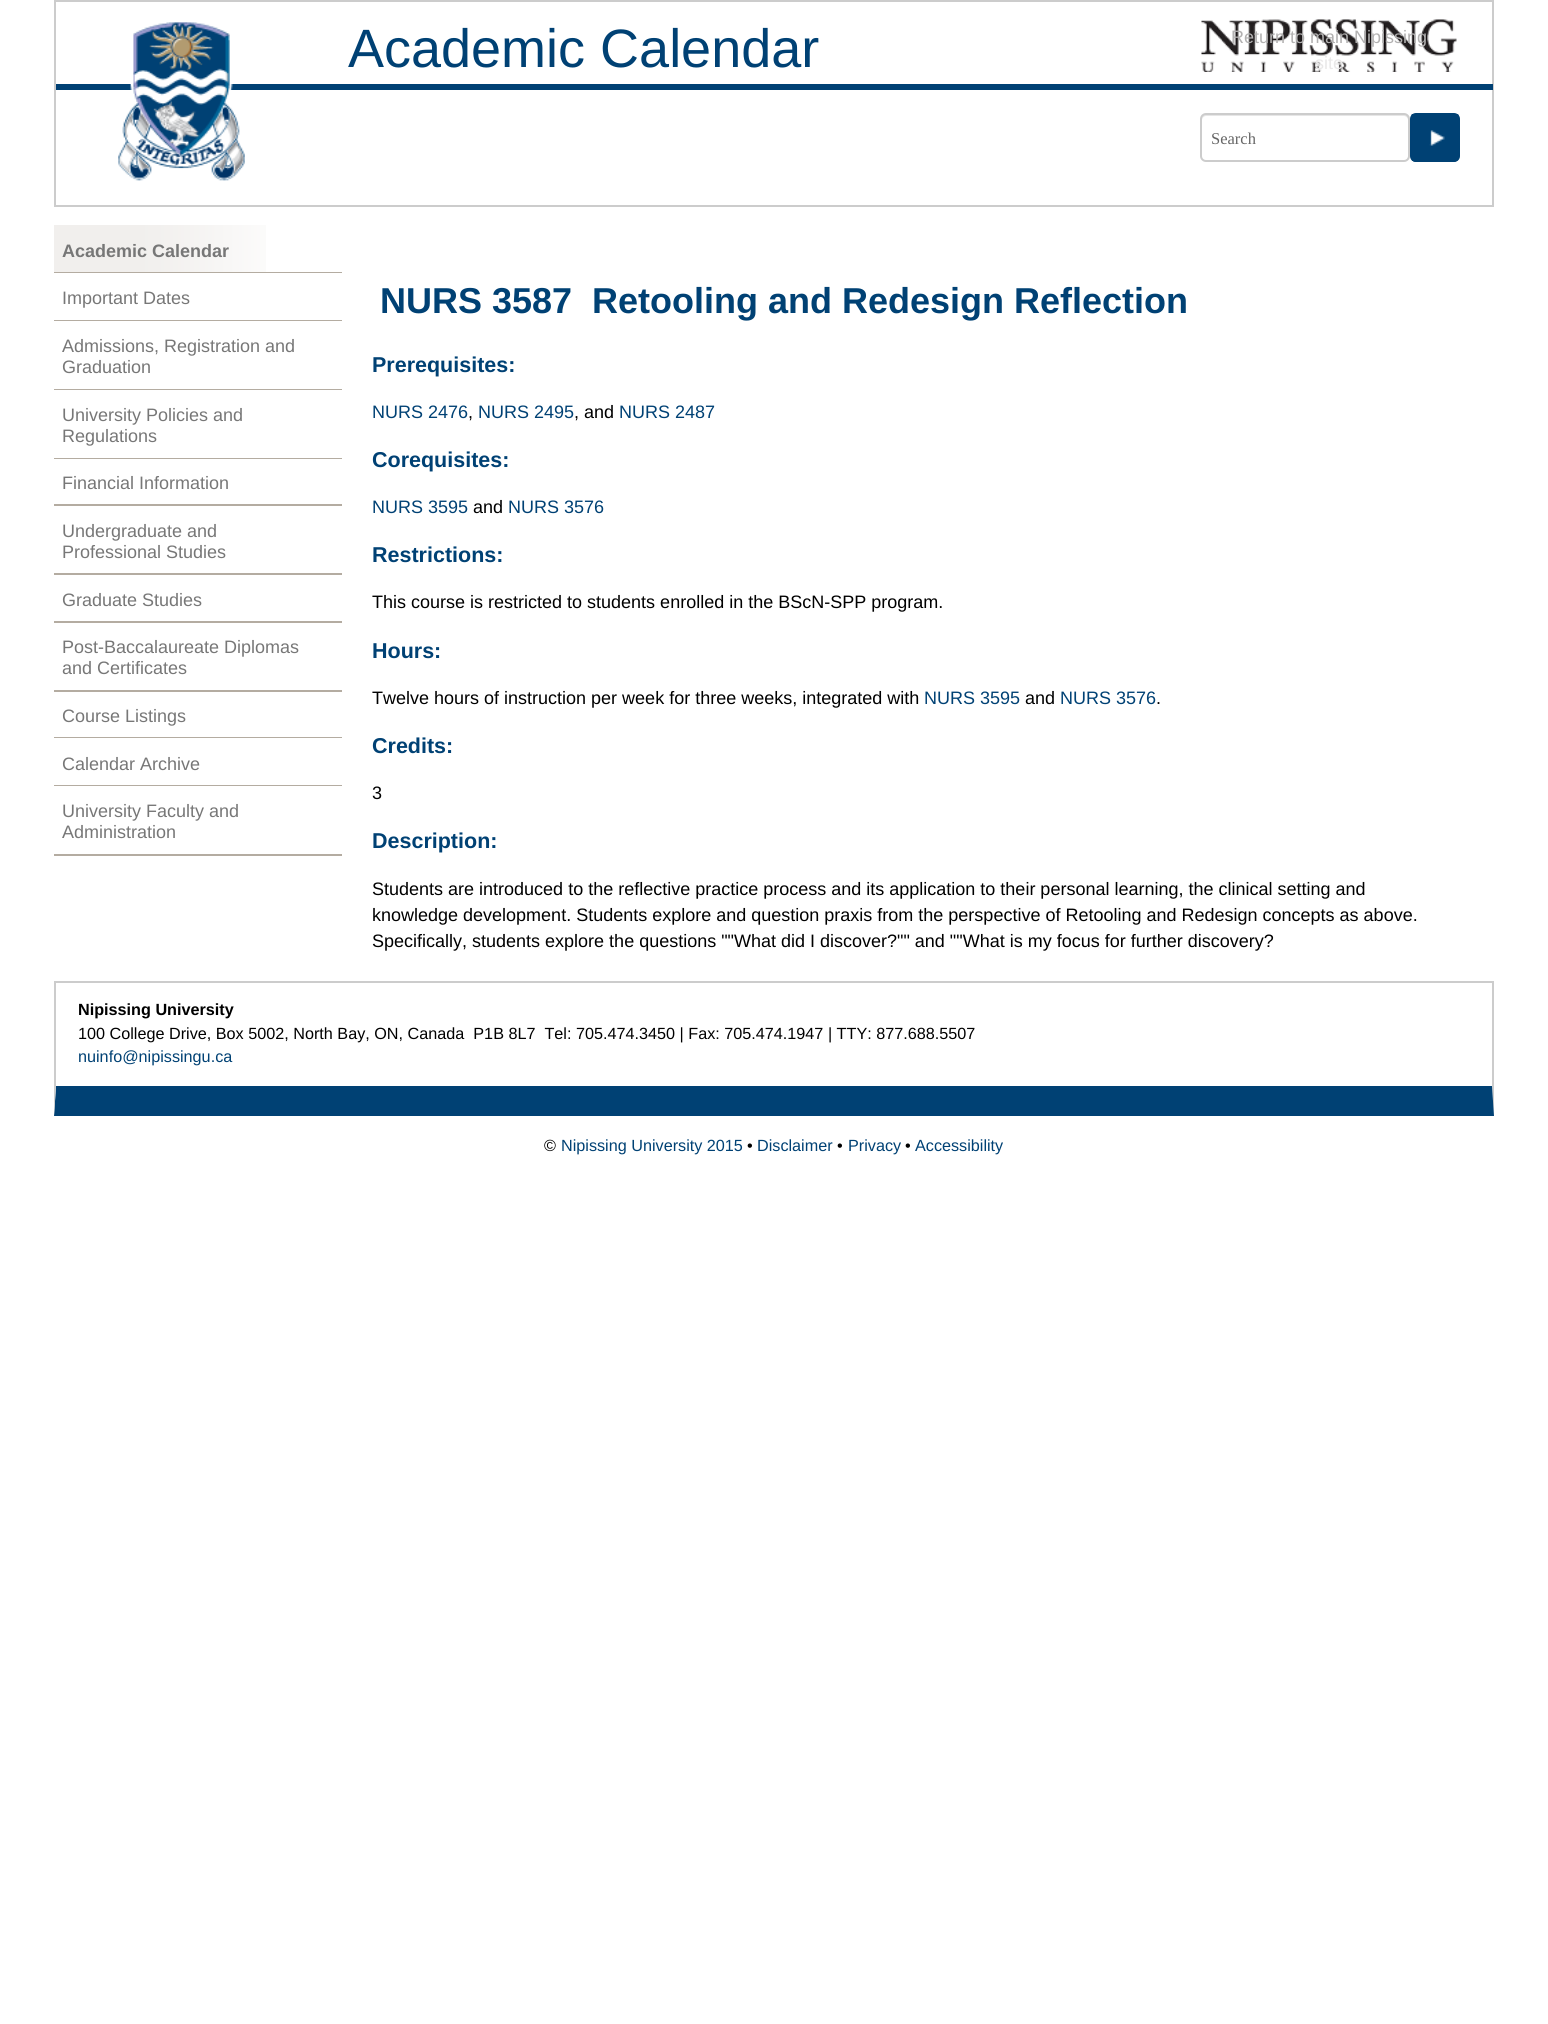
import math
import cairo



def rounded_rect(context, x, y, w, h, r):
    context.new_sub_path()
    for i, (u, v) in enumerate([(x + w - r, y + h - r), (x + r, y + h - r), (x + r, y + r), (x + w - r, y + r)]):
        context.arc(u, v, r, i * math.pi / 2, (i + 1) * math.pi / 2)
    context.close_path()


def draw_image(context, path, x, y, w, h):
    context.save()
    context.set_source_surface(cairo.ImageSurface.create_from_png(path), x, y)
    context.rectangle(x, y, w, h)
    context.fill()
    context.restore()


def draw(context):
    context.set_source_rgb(1, 1, 1)
    context.paint()
    context.rectangle(55, 1, 1438, 205)
    context.set_source_rgb(204 / 255, 204 / 255, 204 / 255)
    context.stroke()
    context.set_source_rgb(0, 65 / 255, 116 / 255)
    context.rectangle(56, 84, 1437, 6)
    context.fill()
    draw_image(context, "images/1.png", 118, 22, 127, 159)
    draw_image(context, "images/2.png", 1201, 19, 256, 53)
    context.set_source_rgb(230 / 255, 230 / 255, 230 / 255)
    context.new_path()
    context.move_to(1206, 116)
    context.line_to(1404, 116)
    context.curve_to(1406, 116, 1408, 118, 1408, 120)
    context.line_to(1408, 159)
    context.curve_to(1409, 158, 1409, 157, 1409, 156)
    context.line_to(1409, 119)
    context.curve_to(1409, 116, 1407, 114, 1404, 114)
    context.line_to(1207, 114)
    context.curve_to(1204, 114, 1202, 116, 1202, 119)
    context.line_to(1202, 120)
    context.curve_to(1202, 118, 1204, 116, 1206, 116)
    context.close_path()
    context.fill()
    rounded_rect(context, 1201, 114, 208, 47, 5)
    context.set_source_rgb(204 / 255, 204 / 255, 204 / 255)
    context.stroke()
    context.set_source_rgb(0, 65 / 255, 116 / 255)
    rounded_rect(context, 1410, 113, 50, 49, 6)
    context.fill()
    draw_image(context, "images/3.png", 1411, 114, 49, 48)
    draw_image(context, "images/4.png", 54, 225, 212, 47)
    context.set_source_rgb(180 / 255, 172 / 255, 161 / 255)
    context.rectangle(54, 272, 288, 1)
    context.fill()
    context.rectangle(54, 320, 288, 1)
    context.fill()
    context.rectangle(54, 389, 288, 1)
    context.fill()
    context.rectangle(54, 458, 288, 1)
    context.fill()
    context.rectangle(54, 504, 288, 2)
    context.fill()
    context.rectangle(54, 573, 288, 2)
    context.fill()
    context.rectangle(54, 621, 288, 2)
    context.fill()
    context.rectangle(54, 690, 288, 2)
    context.fill()
    context.rectangle(54, 737, 288, 1)
    context.fill()
    context.rectangle(54, 785, 288, 1)
    context.fill()
    context.rectangle(54, 854, 288, 2)
    context.fill()
    context.set_source_rgb(204 / 255, 204 / 255, 204 / 255)
    context.rectangle(54, 981, 1440, 2)
    context.fill()
    context.new_path()
    context.move_to(1494, 981)
    context.line_to(1494, 1116)
    context.line_to(1492, 1086)
    context.line_to(1492, 982)
    context.close_path()
    context.fill()
    context.set_source_rgb(0, 65 / 255, 116 / 255)
    context.new_path()
    context.move_to(1494, 1116)
    context.line_to(54, 1116)
    context.line_to(56, 1086)
    context.line_to(1492, 1086)
    context.close_path()
    context.fill()
    context.set_source_rgb(204 / 255, 204 / 255, 204 / 255)
    context.new_path()
    context.move_to(54, 1116)
    context.line_to(54, 981)
    context.line_to(56, 982)
    context.line_to(56, 1086)
    context.close_path()
    context.fill()
    context.select_font_face("Liberation Sans")
    context.set_font_size(54)
    context.set_source_rgb(0, 65 / 255, 116 / 255)
    context.move_to(348, 67)
    context.show_text("Academic Calendar")
    context.set_font_size(18)
    context.set_source_rgb(178 / 255, 177 / 255, 177 / 255)
    context.move_to(1231, 43)
    context.show_text("Return to main Nipissing")
    context.set_source_rgb(233 / 255, 232 / 255, 232 / 255)
    context.move_to(1315, 69)
    context.show_text("site")
    context.select_font_face("Liberation Serif")
    context.set_font_size(16.5)
    context.set_source_rgb(102 / 255, 102 / 255, 102 / 255)
    context.move_to(1211, 144)
    context.show_text("Search")
    context.select_font_face("Liberation Sans", cairo.FontSlant.NORMAL, cairo.FontWeight.BOLD)
    context.set_font_size(18)
    context.set_source_rgb(119 / 255, 119 / 255, 119 / 255)
    context.move_to(62, 257)
    context.show_text("Academic Calendar")
    context.select_font_face("Liberation Sans")
    context.move_to(62, 304)
    context.show_text("Important Dates")
    context.move_to(62, 352)
    context.show_text("Admissions, Registration and")
    context.move_to(62, 373)
    context.show_text("Graduation")
    context.move_to(62, 421)
    context.show_text("University Policies and")
    context.move_to(62, 442)
    context.show_text("Regulations")
    context.move_to(62, 489)
    context.show_text("Financial Information")
    context.move_to(62, 537)
    context.show_text("Undergraduate and")
    context.move_to(62, 558)
    context.show_text("Professional Studies")
    context.move_to(62, 606)
    context.show_text("Graduate Studies")
    context.move_to(62, 653)
    context.show_text("Post-Baccalaureate Diplomas")
    context.move_to(62, 674)
    context.show_text("and Certificates")
    context.move_to(62, 722)
    context.show_text("Course Listings")
    context.move_to(62, 770)
    context.show_text("Calendar Archive")
    context.move_to(62, 817)
    context.show_text("University Faculty and")
    context.move_to(62, 838)
    context.show_text("Administration")
    context.select_font_face("Liberation Sans", cairo.FontSlant.NORMAL, cairo.FontWeight.BOLD)
    context.set_font_size(36)
    context.set_source_rgb(0, 65 / 255, 116 / 255)
    context.move_to(380, 313)
    context.show_text("NURS 3587")
    context.move_to(592, 313)
    context.show_text("Retooling and Redesign Reflection")
    context.set_font_size(21.5)
    context.move_to(372, 372)
    context.show_text("Prerequisites:")
    context.select_font_face("Liberation Sans")
    context.set_font_size(18)
    context.move_to(372, 418)
    context.show_text("NURS 2476")
    context.set_source_rgb(0, 0, 0)
    context.move_to(468, 418)
    context.show_text(",")
    context.set_source_rgb(0, 65 / 255, 116 / 255)
    context.move_to(478, 418)
    context.show_text("NURS 2495")
    context.set_source_rgb(0, 0, 0)
    context.move_to(574, 418)
    context.show_text(", and")
    context.set_source_rgb(0, 65 / 255, 116 / 255)
    context.move_to(619, 418)
    context.show_text("NURS 2487")
    context.select_font_face("Liberation Sans", cairo.FontSlant.NORMAL, cairo.FontWeight.BOLD)
    context.set_font_size(21.5)
    context.move_to(372, 467)
    context.show_text("Corequisites:")
    context.select_font_face("Liberation Sans")
    context.set_font_size(18)
    context.move_to(372, 513)
    context.show_text("NURS 3595")
    context.set_source_rgb(0, 0, 0)
    context.move_to(473, 513)
    context.show_text("and")
    context.set_source_rgb(0, 65 / 255, 116 / 255)
    context.move_to(508, 513)
    context.show_text("NURS 3576")
    context.select_font_face("Liberation Sans", cairo.FontSlant.NORMAL, cairo.FontWeight.BOLD)
    context.set_font_size(21.5)
    context.move_to(372, 562)
    context.show_text("Restrictions:")
    context.select_font_face("Liberation Sans")
    context.set_font_size(18)
    context.set_source_rgb(0, 0, 0)
    context.move_to(372, 608)
    context.show_text("This course is restricted to students enrolled in the BScN-SPP program.")
    context.select_font_face("Liberation Sans", cairo.FontSlant.NORMAL, cairo.FontWeight.BOLD)
    context.set_font_size(21.5)
    context.set_source_rgb(0, 65 / 255, 116 / 255)
    context.move_to(372, 658)
    context.show_text("Hours:")
    context.select_font_face("Liberation Sans")
    context.set_font_size(18)
    context.set_source_rgb(0, 0, 0)
    context.move_to(372, 704)
    context.show_text("Twelve hours of instruction per week for three weeks, integrated with")
    context.set_source_rgb(0, 65 / 255, 116 / 255)
    context.move_to(924, 704)
    context.show_text("NURS 3595")
    context.set_source_rgb(0, 0, 0)
    context.move_to(1025, 704)
    context.show_text("and")
    context.set_source_rgb(0, 65 / 255, 116 / 255)
    context.move_to(1060, 704)
    context.show_text("NURS 3576")
    context.set_source_rgb(0, 0, 0)
    context.move_to(1156, 704)
    context.show_text(".")
    context.select_font_face("Liberation Sans", cairo.FontSlant.NORMAL, cairo.FontWeight.BOLD)
    context.set_font_size(21.5)
    context.set_source_rgb(0, 65 / 255, 116 / 255)
    context.move_to(372, 753)
    context.show_text("Credits:")
    context.select_font_face("Liberation Sans")
    context.set_font_size(18)
    context.set_source_rgb(0, 0, 0)
    context.move_to(372, 799)
    context.show_text("3")
    context.select_font_face("Liberation Sans", cairo.FontSlant.NORMAL, cairo.FontWeight.BOLD)
    context.set_font_size(21.5)
    context.set_source_rgb(0, 65 / 255, 116 / 255)
    context.move_to(372, 848)
    context.show_text("Description:")
    context.select_font_face("Liberation Sans")
    context.set_font_size(18)
    context.set_source_rgb(0, 0, 0)
    context.move_to(372, 895)
    context.show_text("Students are introduced to the reflective practice process and its application to their personal learning, the clinical setting and")
    context.move_to(372, 921)
    context.show_text("knowledge development. Students explore and question praxis from the perspective of Retooling and Redesign concepts as above.")
    context.move_to(372, 947)
    context.show_text("Specifically, students explore the questions \"\"What did I discover?\"\" and \"\"What is my focus for further discovery?")
    context.select_font_face("Liberation Sans", cairo.FontSlant.NORMAL, cairo.FontWeight.BOLD)
    context.set_font_size(16.2)
    context.move_to(78, 1015)
    context.show_text("Nipissing University")
    context.select_font_face("Liberation Sans")
    context.move_to(78, 1039)
    context.show_text("100 College Drive, Box 5002, North Bay, ON, Canada  P1B 8L7  Tel: 705.474.3450 | Fax: 705.474.1947 | TTY: 877.688.5507")
    context.set_source_rgb(0, 65 / 255, 116 / 255)
    context.move_to(78, 1062)
    context.show_text("nuinfo@nipissingu.ca")
    context.set_source_rgb(0, 0, 0)
    context.move_to(544, 1151)
    context.show_text("©")
    context.set_source_rgb(0, 65 / 255, 116 / 255)
    context.move_to(561, 1151)
    context.show_text("Nipissing University 2015")
    context.set_source_rgb(0, 0, 0)
    context.move_to(747, 1151)
    context.show_text("•")
    context.set_source_rgb(0, 65 / 255, 116 / 255)
    context.move_to(757, 1151)
    context.show_text("Disclaimer")
    context.set_source_rgb(0, 0, 0)
    context.move_to(837, 1151)
    context.show_text("•")
    context.set_source_rgb(0, 65 / 255, 116 / 255)
    context.move_to(848, 1151)
    context.show_text("Privacy")
    context.set_source_rgb(0, 0, 0)
    context.move_to(905, 1151)
    context.show_text("•")
    context.set_source_rgb(0, 65 / 255, 116 / 255)
    context.move_to(915, 1151)
    context.show_text("Accessibility")


surface = cairo.ImageSurface(cairo.Format.RGB24, 1548, 2024)
context = cairo.Context(surface)
options = cairo.FontOptions()
options.set_hint_metrics(cairo.HintMetrics.OFF)
options.set_hint_style(cairo.HintStyle.NONE)
context.set_font_options(options)
context.set_miter_limit(4)
draw(context)
surface.write_to_png("out.png")
